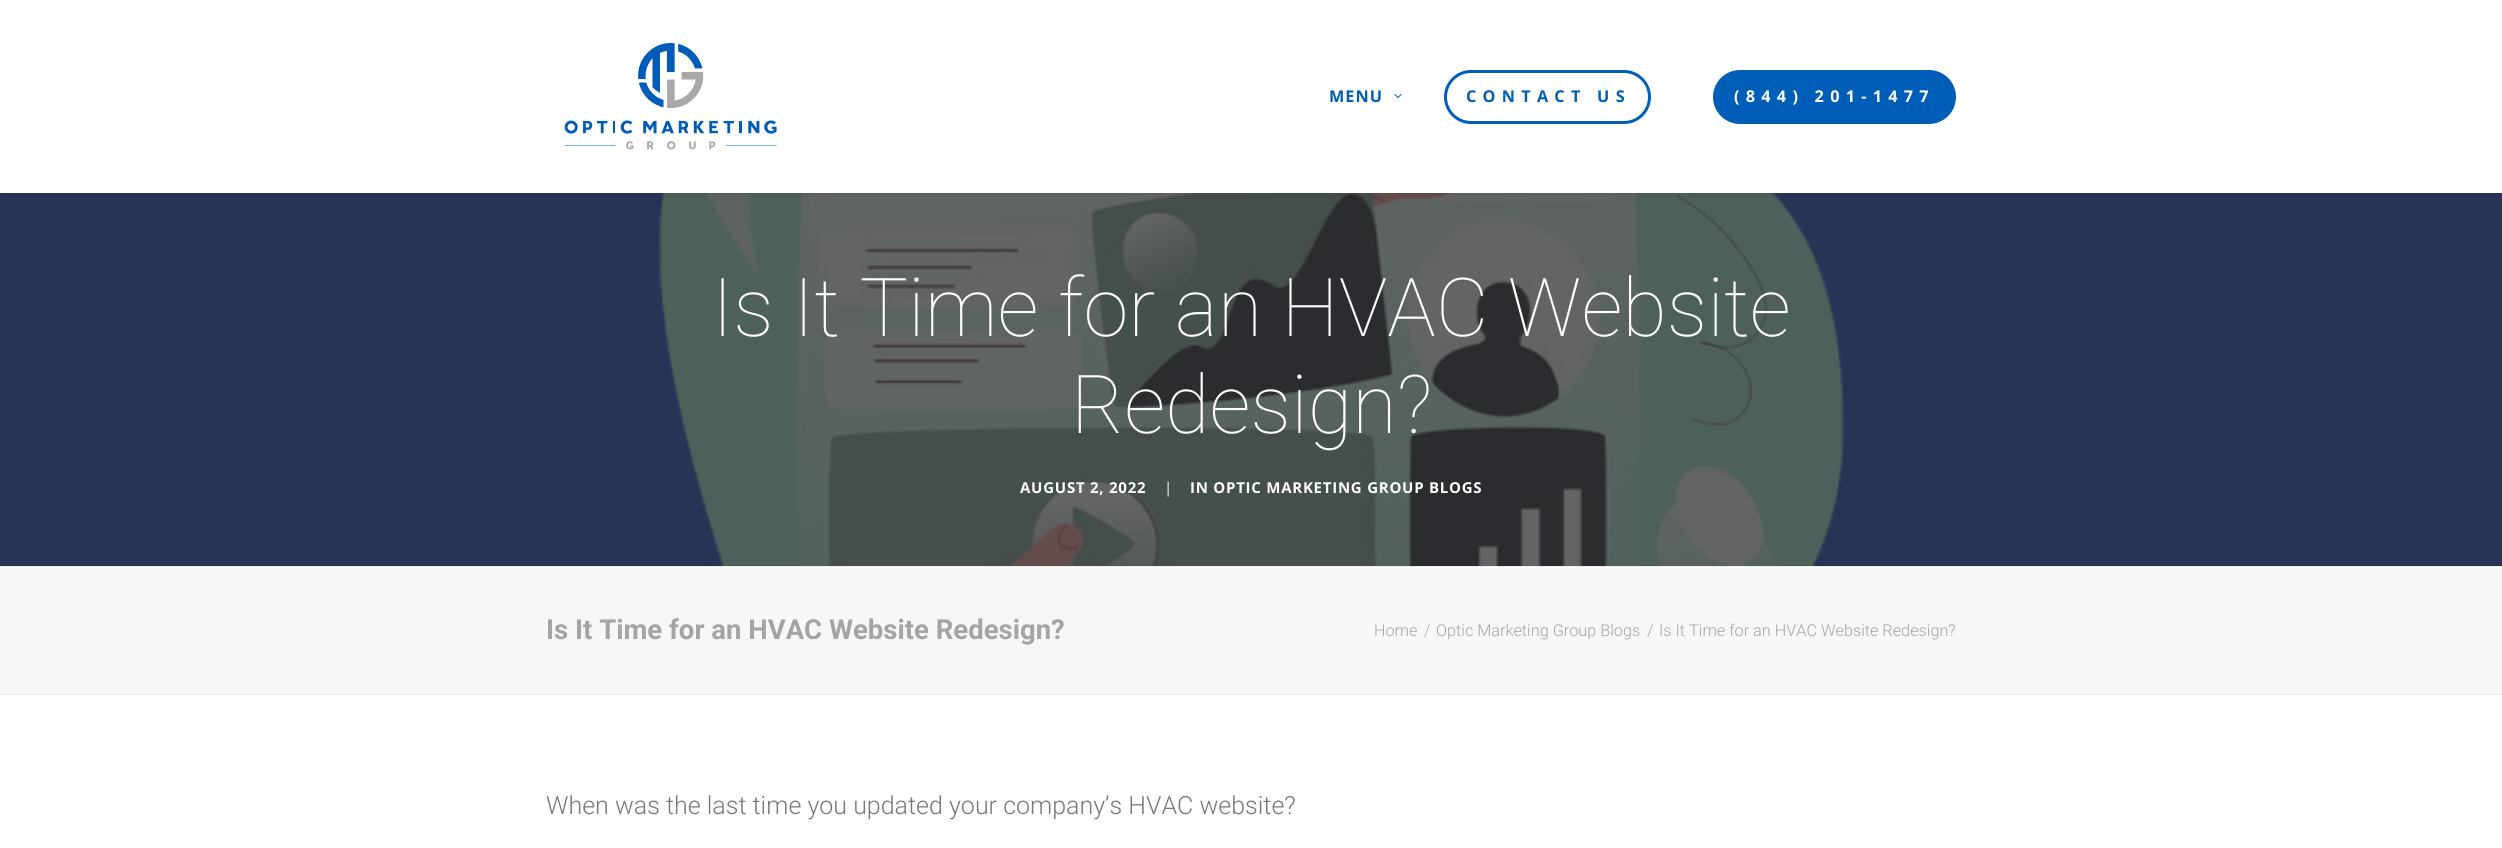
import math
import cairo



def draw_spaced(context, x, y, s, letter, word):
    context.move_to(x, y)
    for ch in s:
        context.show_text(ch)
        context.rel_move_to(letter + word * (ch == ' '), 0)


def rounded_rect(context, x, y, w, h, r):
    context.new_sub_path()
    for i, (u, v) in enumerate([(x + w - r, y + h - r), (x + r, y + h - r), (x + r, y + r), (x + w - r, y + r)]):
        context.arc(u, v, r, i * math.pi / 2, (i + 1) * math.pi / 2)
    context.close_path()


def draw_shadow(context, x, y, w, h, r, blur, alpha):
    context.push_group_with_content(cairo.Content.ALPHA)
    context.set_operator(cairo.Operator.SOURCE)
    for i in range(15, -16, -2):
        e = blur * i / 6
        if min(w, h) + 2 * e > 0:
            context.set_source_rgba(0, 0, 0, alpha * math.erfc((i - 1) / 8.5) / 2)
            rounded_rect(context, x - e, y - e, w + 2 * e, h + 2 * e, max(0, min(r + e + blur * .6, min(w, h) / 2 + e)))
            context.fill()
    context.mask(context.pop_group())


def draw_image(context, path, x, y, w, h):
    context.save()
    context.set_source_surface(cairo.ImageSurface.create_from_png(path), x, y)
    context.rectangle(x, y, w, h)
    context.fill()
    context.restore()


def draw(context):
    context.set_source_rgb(1, 1, 1)
    context.paint()
    draw_image(context, "images/3.png", 0, 193, 2502, 373)
    context.set_source_rgb(0, 0, 0)
    draw_shadow(context, 11, 18, 2480, 167, 0, 6, 0.6)
    context.set_source_rgb(1, 1, 1)
    context.rectangle(0, 5, 2502, 188)
    context.fill()
    draw_image(context, "images/1.png", 564, 43, 213, 107)
    draw_image(context, "images/2.png", 1394, 94, 8, 5)
    rounded_rect(context, 1445.5, 71.5, 204, 51, 25.5)
    context.set_source_rgb(0, 94 / 255, 184 / 255)
    context.set_line_width(3)
    context.stroke()
    rounded_rect(context, 1714.5, 71.5, 240, 51, 25.5)
    context.fill_preserve()
    context.stroke()
    context.set_source_rgb(247 / 255, 247 / 255, 247 / 255)
    context.rectangle(0, 568, 2502, 126)
    context.fill()
    context.set_source_rgb(234 / 255, 234 / 255, 234 / 255)
    context.rectangle(0, 566, 2502, 1)
    context.fill()
    context.rectangle(0, 694, 2502, 1)
    context.fill()
    context.select_font_face("Open Sans", cairo.FontSlant.NORMAL, cairo.FontWeight.BOLD)
    context.set_font_size(16.25)
    context.set_source_rgb(0, 94 / 255, 184 / 255)
    draw_spaced(context, 1329, 102, "MENU", 1, 0)
    draw_spaced(context, 1466, 102, "CONTACT US", 6.25, 0)
    context.set_source_rgb(1, 1, 1)
    draw_spaced(context, 1734, 102, "(844) 201-1477", 6.25, 0)
    context.select_font_face("Roboto Thin")
    context.set_font_size(81.25)
    context.move_to(712, 336)
    context.show_text("Is It Time for an HVAC Website")
    context.move_to(1071, 433)
    context.show_text("Redesign?")
    context.select_font_face("Open Sans", cairo.FontSlant.NORMAL, cairo.FontWeight.BOLD)
    context.set_font_size(15)
    draw_spaced(context, 1020, 493, "AUGUST 2, 2022", 0.75, 0)
    context.select_font_face("Open Sans")
    draw_spaced(context, 1164, 493, "|", 0.75, 0)
    context.select_font_face("Open Sans", cairo.FontSlant.NORMAL, cairo.FontWeight.BOLD)
    draw_spaced(context, 1190, 493, "IN OPTIC MARKETING GROUP BLOGS", 0.75, 0)
    context.select_font_face("Roboto", cairo.FontSlant.NORMAL, cairo.FontWeight.BOLD)
    context.set_font_size(27.5)
    context.set_source_rgb(164 / 255, 164 / 255, 164 / 255)
    context.move_to(546, 639)
    context.show_text("Is It Time for an HVAC Website Redesign?")
    context.select_font_face("Roboto Light")
    context.set_font_size(16.25)
    context.move_to(1374, 636)
    context.show_text("Home")
    context.move_to(1424, 636)
    context.show_text("/")
    context.move_to(1436, 636)
    context.show_text("Optic Marketing Group Blogs")
    context.move_to(1647, 636)
    context.show_text("/")
    context.move_to(1659, 636)
    context.show_text("Is It Time for an HVAC Website Redesign?")
    context.set_font_size(25)
    context.set_source_rgb(119 / 255, 119 / 255, 119 / 255)
    context.move_to(546, 814)
    context.show_text("When was the last time you updated your company’s HVAC website?")


surface = cairo.ImageSurface(cairo.Format.RGB24, 2502, 848)
context = cairo.Context(surface)
options = cairo.FontOptions()
options.set_hint_metrics(cairo.HintMetrics.OFF)
options.set_hint_style(cairo.HintStyle.NONE)
context.set_font_options(options)
context.set_miter_limit(4)
draw(context)
surface.write_to_png("out.png")
